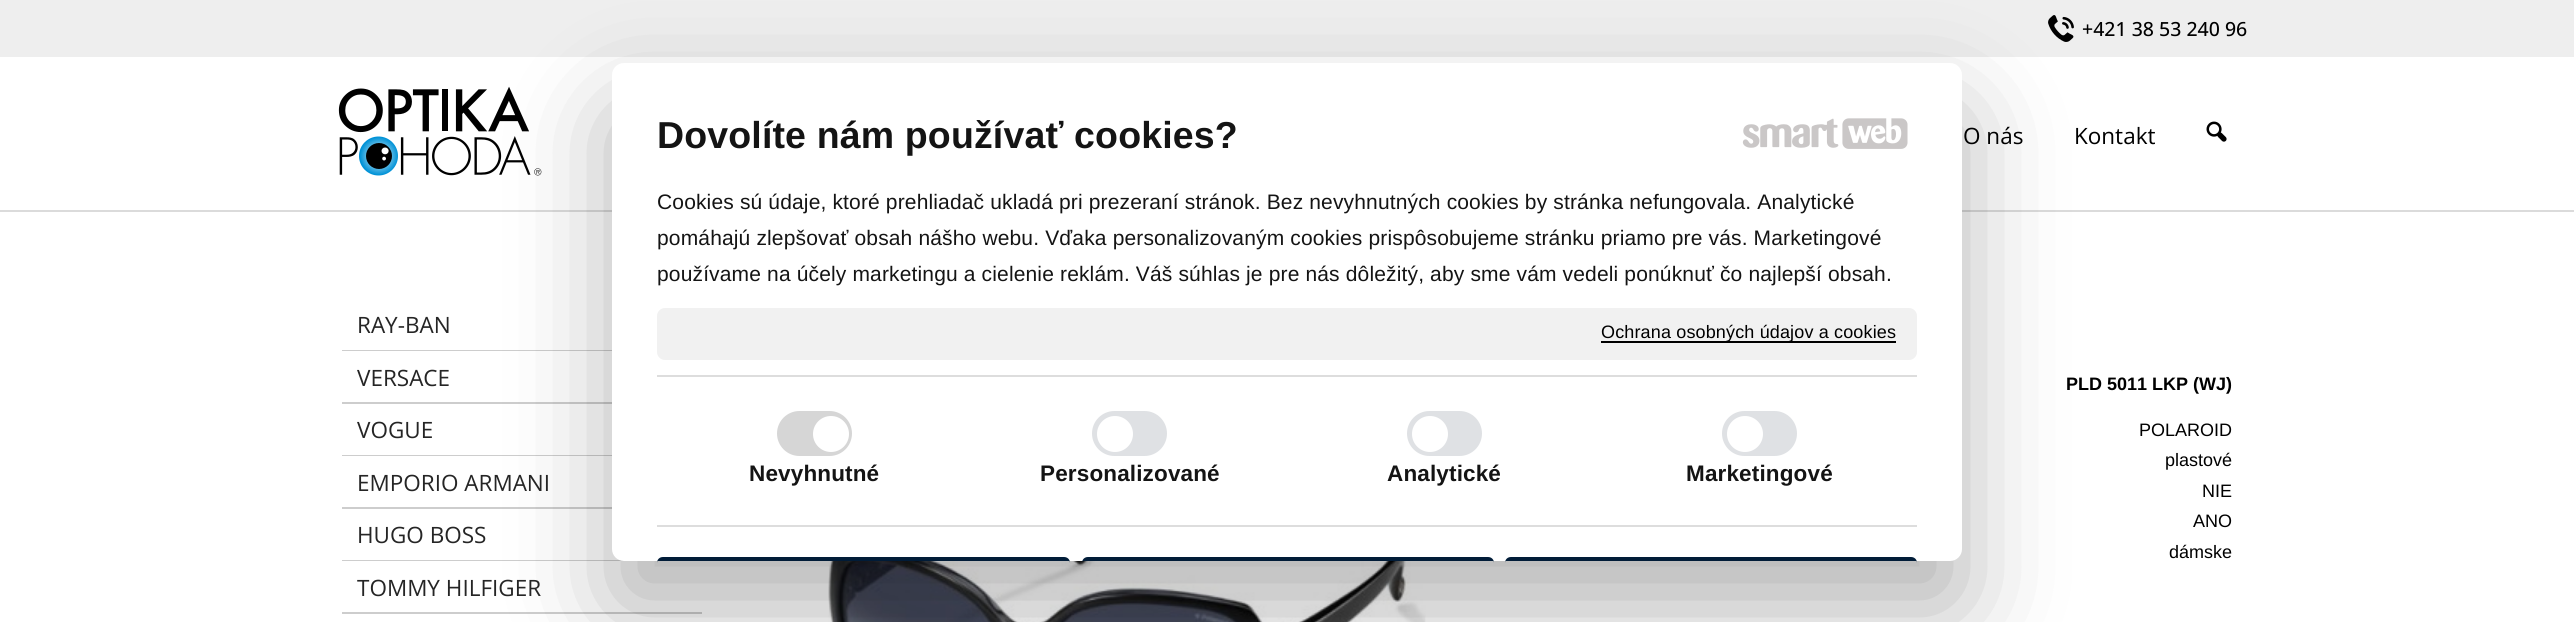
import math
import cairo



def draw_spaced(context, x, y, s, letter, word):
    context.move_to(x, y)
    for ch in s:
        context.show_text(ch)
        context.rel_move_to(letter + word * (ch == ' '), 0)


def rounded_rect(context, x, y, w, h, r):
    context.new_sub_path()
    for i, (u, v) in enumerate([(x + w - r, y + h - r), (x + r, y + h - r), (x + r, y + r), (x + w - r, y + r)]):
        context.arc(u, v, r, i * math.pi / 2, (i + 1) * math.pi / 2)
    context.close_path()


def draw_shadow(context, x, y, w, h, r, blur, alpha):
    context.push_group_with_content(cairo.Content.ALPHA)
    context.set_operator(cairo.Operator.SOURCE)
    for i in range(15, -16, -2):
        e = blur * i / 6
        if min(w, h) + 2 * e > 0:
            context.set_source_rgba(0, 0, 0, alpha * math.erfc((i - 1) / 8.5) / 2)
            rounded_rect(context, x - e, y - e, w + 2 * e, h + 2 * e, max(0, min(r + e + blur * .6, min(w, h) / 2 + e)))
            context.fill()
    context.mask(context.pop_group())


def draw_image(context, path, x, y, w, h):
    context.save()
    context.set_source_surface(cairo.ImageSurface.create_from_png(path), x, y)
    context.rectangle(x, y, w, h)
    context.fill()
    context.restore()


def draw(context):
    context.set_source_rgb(1, 1, 1)
    context.paint()
    context.set_source_rgb(238 / 255, 238 / 255, 238 / 255)
    context.rectangle(0, 0, 2574, 57)
    context.fill()
    context.set_source_rgb(219 / 255, 219 / 255, 219 / 255)
    context.rectangle(0, 210, 2574, 2)
    context.fill()
    draw_image(context, "images/1.png", 2048, 15, 26, 27)
    draw_image(context, "images/2.png", 338, 86, 204, 90)
    draw_image(context, "images/3.png", 2206, 121, 21, 21)
    context.set_source_rgb(205 / 255, 205 / 255, 205 / 255)
    context.rectangle(342, 350, 270, 1)
    context.fill()
    context.rectangle(342, 402, 270, 2)
    context.fill()
    context.rectangle(342, 455, 270, 1)
    context.fill()
    context.rectangle(342, 507, 270, 2)
    context.fill()
    context.rectangle(342, 560, 282, 1)
    context.fill()
    context.rectangle(342, 612, 360, 2)
    context.fill()
    draw_image(context, "images/6.png", 828, 561, 598, 61)
    context.set_source_rgb(0, 0, 0)
    draw_shadow(context, 612, 111, 1350, 498, 12, 51, 0.3)
    context.set_source_rgb(1, 1, 1)
    rounded_rect(context, 612, 63, 1350, 498, 12)
    context.fill()
    draw_image(context, "images/4.png", 1742, 118, 97, 30)
    draw_image(context, "images/5.png", 1842, 118, 66, 31)
    context.set_source_rgb(241 / 255, 241 / 255, 241 / 255)
    rounded_rect(context, 657, 308, 1260, 52, 8)
    context.fill()
    context.set_source_rgb(0, 0, 0)
    context.rectangle(1601, 341, 295, 2)
    context.fill()
    context.set_source_rgb(221 / 255, 221 / 255, 221 / 255)
    context.rectangle(657, 375, 1260, 2)
    context.fill()
    context.rectangle(657, 525, 1260, 2)
    context.fill()
    context.set_source_rgb(214 / 255, 214 / 255, 214 / 255)
    rounded_rect(context, 777, 411, 75, 45, 22.5)
    context.fill()
    context.set_source_rgb(1, 1, 1)
    context.arc(831, 434, 18, 0, 2 * math.pi)
    context.fill()
    context.set_source_rgb(223 / 255, 225 / 255, 228 / 255)
    rounded_rect(context, 1092, 411, 75, 45, 22.5)
    context.fill()
    context.set_source_rgb(1, 1, 1)
    context.arc(1115, 434, 18, 0, 2 * math.pi)
    context.fill()
    context.set_source_rgb(223 / 255, 225 / 255, 228 / 255)
    rounded_rect(context, 1407, 411, 75, 45, 22.5)
    context.fill()
    context.set_source_rgb(1, 1, 1)
    context.arc(1430, 434, 18, 0, 2 * math.pi)
    context.fill()
    context.set_source_rgb(223 / 255, 225 / 255, 228 / 255)
    rounded_rect(context, 1722, 411, 75, 45, 22.5)
    context.fill()
    context.set_source_rgb(1, 1, 1)
    context.arc(1745, 434, 18, 0, 2 * math.pi)
    context.fill()
    context.set_source_rgb(1 / 255, 28 / 255, 56 / 255)
    context.new_path()
    context.move_to(663, 557)
    context.line_to(1064, 557)
    context.curve_to(1067.5, 557, 1070, 559.5, 1070, 563)
    context.line_to(1070, 561)
    context.line_to(657, 561)
    context.line_to(657, 563)
    context.curve_to(657, 559.5, 659.5, 557, 663, 557)
    context.close_path()
    context.fill()
    context.new_path()
    context.move_to(1088, 557)
    context.line_to(1488, 557)
    context.curve_to(1491.5, 557, 1494, 559.5, 1494, 563)
    context.line_to(1494, 561)
    context.line_to(1082, 561)
    context.line_to(1082, 563)
    context.curve_to(1082, 559.5, 1084.5, 557, 1088, 557)
    context.close_path()
    context.fill()
    context.new_path()
    context.move_to(1511, 557)
    context.line_to(1911, 557)
    context.curve_to(1914.5, 557, 1917, 559.5, 1917, 563)
    context.line_to(1917, 561)
    context.line_to(1505, 561)
    context.line_to(1505, 563)
    context.curve_to(1505, 559.5, 1507.5, 557, 1511, 557)
    context.close_path()
    context.fill()
    context.select_font_face("Open Sans Medium")
    context.set_font_size(19.5)
    context.set_source_rgb(0, 0, 0)
    context.move_to(2082, 36)
    context.show_text("+421 38 53 240 96")
    context.select_font_face("Open Sans")
    context.set_font_size(22.5)
    context.move_to(1963, 144)
    context.show_text("O nás")
    context.move_to(2074, 144)
    context.show_text("Kontakt")
    context.select_font_face("Liberation Sans", cairo.FontSlant.NORMAL, cairo.FontWeight.BOLD)
    context.set_font_size(37.5)
    context.set_source_rgb(20 / 255, 20 / 255, 20 / 255)
    draw_spaced(context, 657, 148, "Dovolíte nám používať cookies?", 0.15, 0)
    context.select_font_face("Liberation Sans")
    context.set_font_size(21)
    draw_spaced(context, 657, 209, "Cookies sú údaje, ktoré prehliadač ukladá pri prezeraní stránok. Bez nevyhnutných cookies by stránka nefungovala. Analytické", 0.15, 0)
    draw_spaced(context, 657, 245, "pomáhajú zlepšovať obsah nášho webu. Vďaka personalizovaným cookies prispôsobujeme stránku priamo pre vás. Marketingové", 0.15, 0)
    draw_spaced(context, 657, 281, "používame na účely marketingu a cielenie reklám. Váš súhlas je pre nás dôležitý, aby sme vám vedeli ponúknuť čo najlepší obsah.", 0.15, 0)
    context.set_font_size(18)
    context.set_source_rgb(0, 0, 0)
    draw_spaced(context, 1601, 338, "Ochrana osobných údajov a cookies", 0.15, 0)
    context.select_font_face("Liberation Sans", cairo.FontSlant.NORMAL, cairo.FontWeight.BOLD)
    context.set_font_size(22.5)
    context.set_source_rgb(20 / 255, 20 / 255, 20 / 255)
    draw_spaced(context, 749, 481, "Nevyhnutné", 0.15, 0)
    draw_spaced(context, 1040, 481, "Personalizované", 0.15, 0)
    draw_spaced(context, 1387, 481, "Analytické", 0.15, 0)
    draw_spaced(context, 1686, 481, "Marketingové", 0.15, 0)
    context.select_font_face("Open Sans")
    context.set_source_rgb(37 / 255, 37 / 255, 37 / 255)
    context.move_to(357, 333)
    context.show_text("RAY-BAN")
    context.move_to(357, 386)
    context.show_text("VERSACE")
    context.move_to(357, 438)
    context.show_text("VOGUE")
    context.move_to(357, 491)
    context.show_text("EMPORIO ARMANI")
    context.move_to(357, 543)
    context.show_text("HUGO BOSS")
    context.move_to(357, 596)
    context.show_text("TOMMY HILFIGER")
    context.select_font_face("Liberation Sans", cairo.FontSlant.NORMAL, cairo.FontWeight.BOLD)
    context.set_font_size(18)
    context.set_source_rgb(0, 0, 0)
    context.move_to(2066, 390)
    context.show_text("PLD 5011 LKP (WJ)")
    context.select_font_face("Liberation Sans")
    context.move_to(2139, 436)
    context.show_text("POLAROID")
    context.move_to(2165, 466)
    context.show_text("plastové")
    context.move_to(2202, 497)
    context.show_text("NIE")
    context.move_to(2193, 527)
    context.show_text("ANO")
    context.move_to(2169, 558)
    context.show_text("dámske")


surface = cairo.ImageSurface(cairo.Format.RGB24, 2574, 622)
context = cairo.Context(surface)
options = cairo.FontOptions()
options.set_hint_metrics(cairo.HintMetrics.OFF)
options.set_hint_style(cairo.HintStyle.NONE)
context.set_font_options(options)
context.set_miter_limit(4)
draw(context)
surface.write_to_png("out.png")
